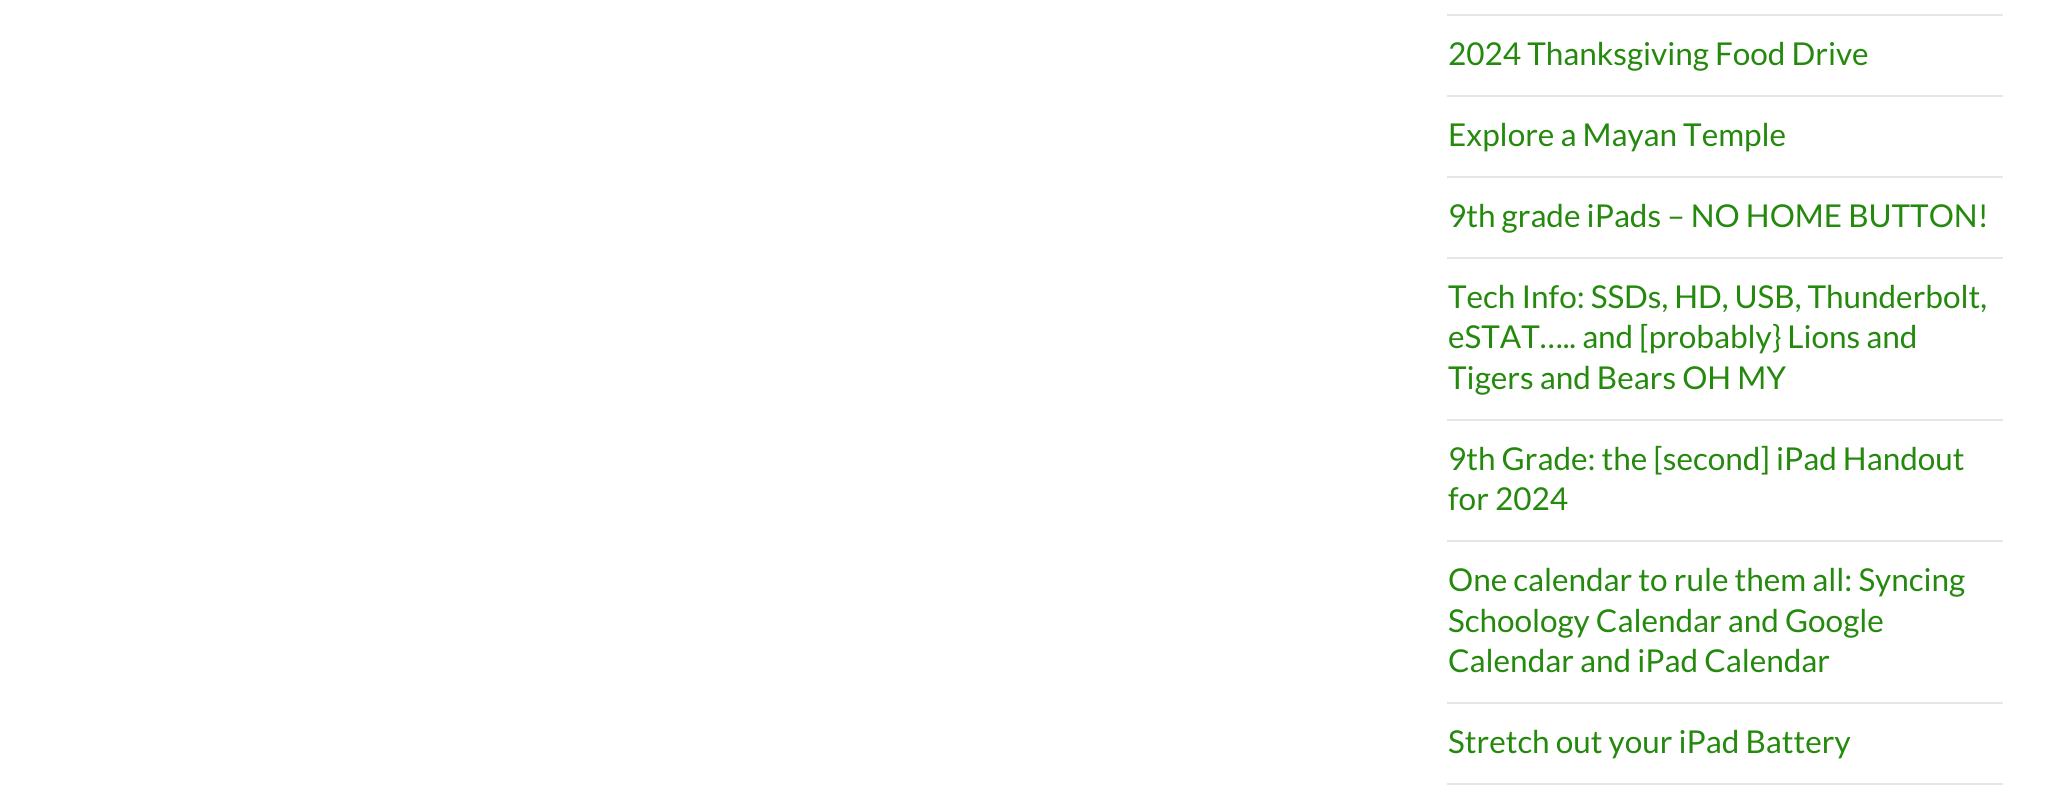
import math
import cairo



def draw(context):
    context.set_source_rgb(1, 1, 1)
    context.paint()
    context.set_source_rgb(230 / 255, 230 / 255, 230 / 255)
    context.rectangle(1447, 14, 556, 2)
    context.fill()
    context.rectangle(1447, 95, 556, 2)
    context.fill()
    context.rectangle(1447, 176, 556, 2)
    context.fill()
    context.rectangle(1447, 257, 556, 2)
    context.fill()
    context.rectangle(1447, 419, 556, 2)
    context.fill()
    context.rectangle(1447, 540, 556, 2)
    context.fill()
    context.rectangle(1447, 702, 556, 2)
    context.fill()
    context.rectangle(1447, 783, 556, 2)
    context.fill()
    context.select_font_face("Lato")
    context.set_font_size(31.5)
    context.set_source_rgb(36 / 255, 137 / 255, 13 / 255)
    context.move_to(1448, 65)
    context.show_text("2024 Thanksgiving Food Drive")
    context.move_to(1448, 146)
    context.show_text("Explore a Mayan Temple")
    context.move_to(1448, 227)
    context.show_text("9th grade iPads – NO HOME BUTTON!")
    context.move_to(1448, 308)
    context.show_text("Tech Info: SSDs, HD, USB, Thunderbolt,")
    context.move_to(1448, 348)
    context.show_text("eSTAT….. and [probably} Lions and")
    context.move_to(1448, 389)
    context.show_text("Tigers and Bears OH MY")
    context.move_to(1448, 470)
    context.show_text("9th Grade: the [second] iPad Handout")
    context.move_to(1448, 510)
    context.show_text("for 2024")
    context.move_to(1448, 591)
    context.show_text("One calendar to rule them all: Syncing")
    context.move_to(1448, 632)
    context.show_text("Schoology Calendar and Google")
    context.move_to(1448, 672)
    context.show_text("Calendar and iPad Calendar")
    context.move_to(1448, 753)
    context.show_text("Stretch out your iPad Battery")


surface = cairo.ImageSurface(cairo.Format.RGB24, 2068, 794)
context = cairo.Context(surface)
options = cairo.FontOptions()
options.set_hint_metrics(cairo.HintMetrics.OFF)
options.set_hint_style(cairo.HintStyle.NONE)
context.set_font_options(options)
context.set_miter_limit(4)
draw(context)
surface.write_to_png("out.png")
